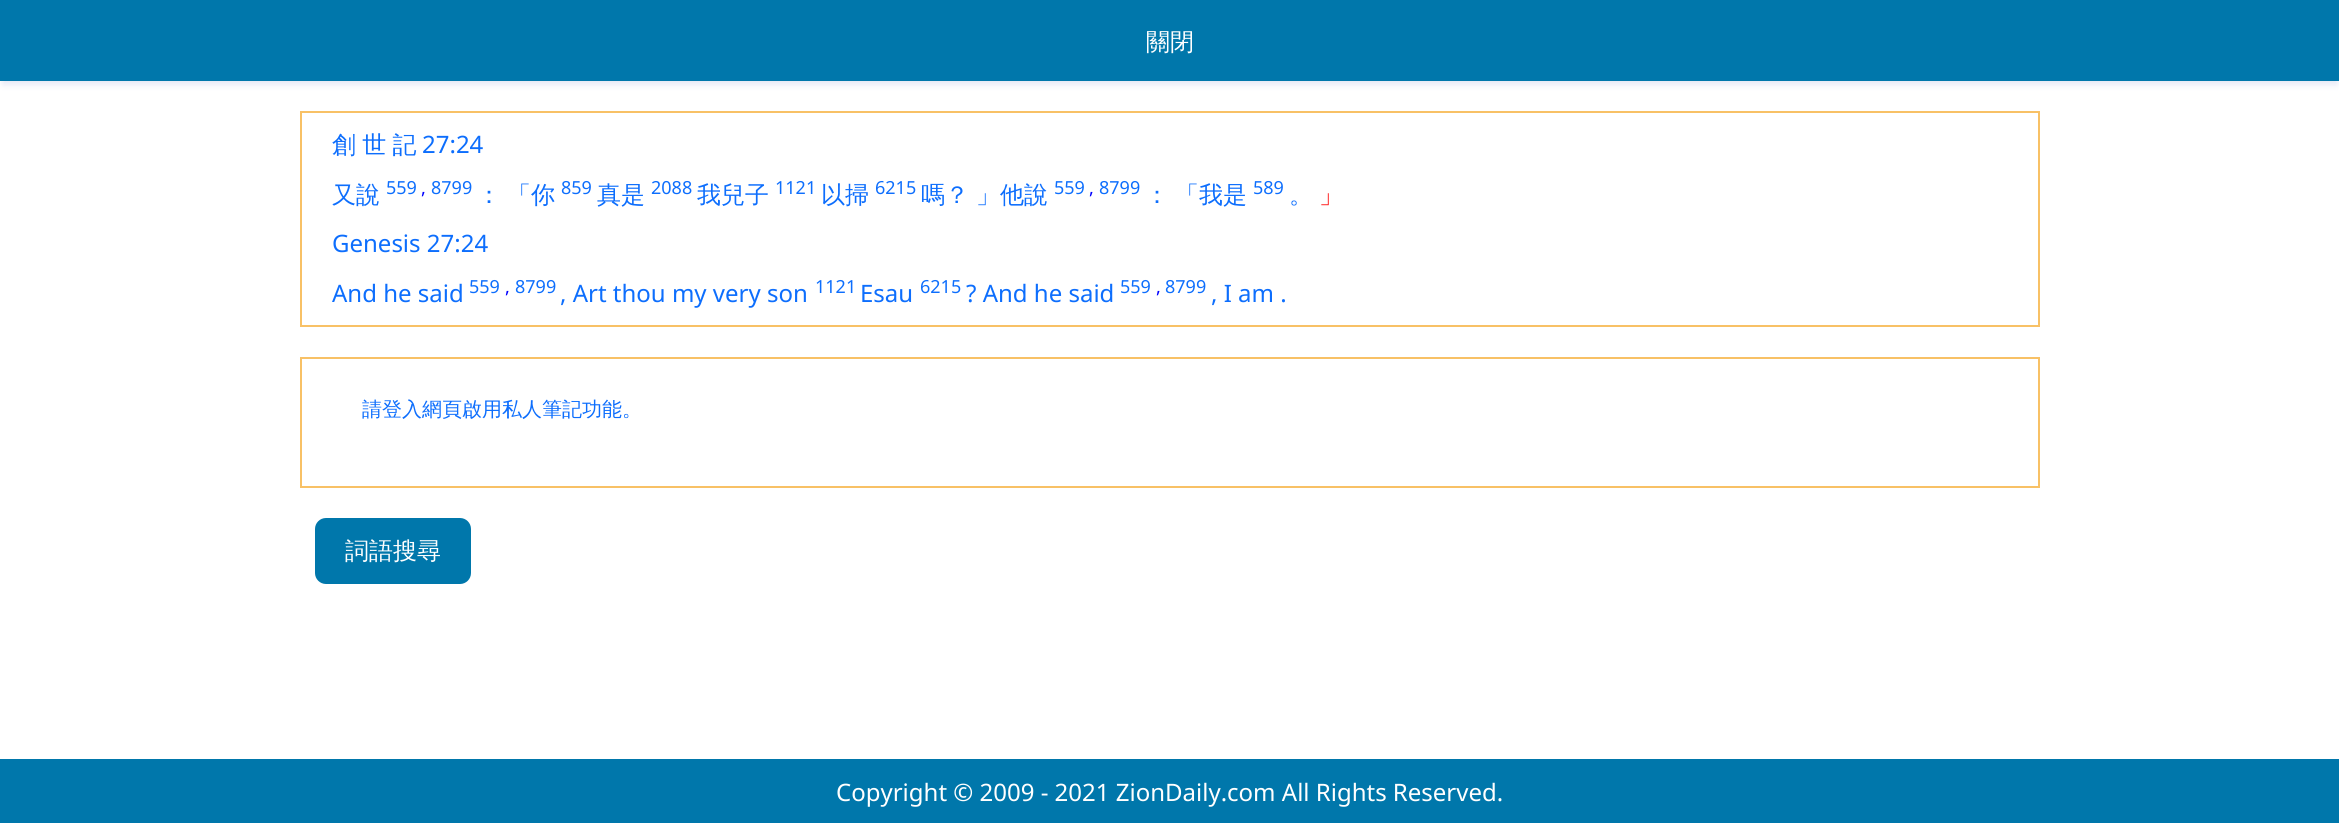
import math
import cairo



def draw_spaced(context, x, y, s, letter, word):
    context.move_to(x, y)
    for ch in s:
        context.show_text(ch)
        context.rel_move_to(letter + word * (ch == ' '), 0)


def rounded_rect(context, x, y, w, h, r):
    context.new_sub_path()
    for i, (u, v) in enumerate([(x + w - r, y + h - r), (x + r, y + h - r), (x + r, y + r), (x + w - r, y + r)]):
        context.arc(u, v, r, i * math.pi / 2, (i + 1) * math.pi / 2)
    context.close_path()


def draw_shadow(context, x, y, w, h, r, blur, alpha):
    context.push_group_with_content(cairo.Content.ALPHA)
    context.set_operator(cairo.Operator.SOURCE)
    for i in range(15, -16, -2):
        e = blur * i / 6
        if min(w, h) + 2 * e > 0:
            context.set_source_rgba(0, 0, 0, alpha * math.erfc((i - 1) / 8.5) / 2)
            rounded_rect(context, x - e, y - e, w + 2 * e, h + 2 * e, max(0, min(r + e + blur * .6, min(w, h) / 2 + e)))
            context.fill()
    context.mask(context.pop_group())


def draw(context):
    context.set_source_rgb(1, 1, 1)
    context.paint()
    context.set_source_rgb(0, 33 / 255, 155 / 255)
    draw_shadow(context, 3, 9, 2334, 75, 0, 4, 0.12)
    context.set_source_rgb(0, 119 / 255, 171 / 255)
    context.rectangle(0, 0, 2339, 81)
    context.fill()
    context.rectangle(301, 112, 1738, 214)
    context.set_source_rgb(248 / 255, 193 / 255, 102 / 255)
    context.stroke()
    context.rectangle(301, 358, 1738, 129)
    context.stroke()
    context.set_source_rgb(0, 119 / 255, 171 / 255)
    rounded_rect(context, 315, 518, 156, 66, 11)
    context.fill()
    context.rectangle(0, 759, 2339, 64)
    context.fill()
    context.select_font_face("WenQuanYi Zen Hei Medium")
    context.set_font_size(24)
    context.set_source_rgb(1, 1, 1)
    context.move_to(1146, 50)
    context.show_text("關閉")
    context.set_source_rgb(13 / 255, 110 / 255, 253 / 255)
    draw_spaced(context, 332, 153, "創 世 記", 0, -1)
    context.select_font_face("Noto Sans")
    context.move_to(422, 153)
    context.show_text("27:24")
    context.select_font_face("WenQuanYi Zen Hei Medium")
    context.move_to(332, 203)
    context.show_text("又說")
    context.select_font_face("Noto Sans")
    context.set_font_size(18)
    context.move_to(386, 194)
    context.show_text("559")
    context.set_source_rgb(0, 0, 1)
    context.move_to(421, 194)
    context.show_text(",")
    context.set_source_rgb(13 / 255, 110 / 255, 253 / 255)
    context.move_to(431, 194)
    context.show_text("8799")
    context.select_font_face("WenQuanYi Zen Hei Medium")
    context.set_font_size(24)
    context.move_to(477, 203)
    context.show_text("：")
    context.move_to(507, 203)
    context.show_text("「你")
    context.select_font_face("Noto Sans")
    context.set_font_size(18)
    context.move_to(561, 194)
    context.show_text("859")
    context.select_font_face("WenQuanYi Zen Hei Medium")
    context.set_font_size(24)
    context.move_to(597, 203)
    context.show_text("真是")
    context.select_font_face("Noto Sans")
    context.set_font_size(18)
    context.move_to(651, 194)
    context.show_text("2088")
    context.select_font_face("WenQuanYi Zen Hei Medium")
    context.set_font_size(24)
    context.move_to(697, 203)
    context.show_text("我兒子")
    context.select_font_face("Noto Sans")
    context.set_font_size(18)
    context.move_to(775, 194)
    context.show_text("1121")
    context.select_font_face("WenQuanYi Zen Hei Medium")
    context.set_font_size(24)
    context.move_to(821, 203)
    context.show_text("以掃")
    context.select_font_face("Noto Sans")
    context.set_font_size(18)
    context.move_to(875, 194)
    context.show_text("6215")
    context.select_font_face("WenQuanYi Zen Hei Medium")
    context.set_font_size(24)
    context.move_to(921, 203)
    context.show_text("嗎？")
    context.move_to(976, 203)
    context.show_text("」他說")
    context.select_font_face("Noto Sans")
    context.set_font_size(18)
    context.move_to(1054, 194)
    context.show_text("559")
    context.set_source_rgb(0, 0, 1)
    context.move_to(1089, 194)
    context.show_text(",")
    context.set_source_rgb(13 / 255, 110 / 255, 253 / 255)
    context.move_to(1099, 194)
    context.show_text("8799")
    context.select_font_face("WenQuanYi Zen Hei Medium")
    context.set_font_size(24)
    context.move_to(1145, 203)
    context.show_text("：")
    context.move_to(1175, 203)
    context.show_text("「我是")
    context.select_font_face("Noto Sans")
    context.set_font_size(18)
    context.move_to(1253, 194)
    context.show_text("589")
    context.select_font_face("WenQuanYi Zen Hei Medium")
    context.set_font_size(24)
    context.move_to(1289, 203)
    context.show_text("。")
    context.set_source_rgb(1, 0, 0)
    context.move_to(1319, 203)
    context.show_text("」")
    context.select_font_face("Noto Sans")
    context.set_source_rgb(13 / 255, 110 / 255, 253 / 255)
    context.move_to(332, 252)
    context.show_text("Genesis 27:24")
    context.move_to(332, 302)
    context.show_text("And he said")
    context.set_font_size(18)
    context.move_to(469, 293)
    context.show_text("559")
    context.set_source_rgb(0, 0, 1)
    context.move_to(505, 293)
    context.show_text(",")
    context.set_source_rgb(13 / 255, 110 / 255, 253 / 255)
    context.move_to(515, 293)
    context.show_text("8799")
    context.set_font_size(24)
    context.move_to(560, 302)
    context.show_text(", Art thou my very son")
    context.set_font_size(18)
    context.move_to(815, 293)
    context.show_text("1121")
    context.set_font_size(24)
    context.move_to(860, 302)
    context.show_text("Esau")
    context.set_font_size(18)
    context.move_to(920, 293)
    context.show_text("6215")
    context.set_font_size(24)
    context.move_to(966, 302)
    context.show_text("? And he said")
    context.set_font_size(18)
    context.move_to(1120, 293)
    context.show_text("559")
    context.set_source_rgb(0, 0, 1)
    context.move_to(1156, 293)
    context.show_text(",")
    context.set_source_rgb(13 / 255, 110 / 255, 253 / 255)
    context.move_to(1165, 293)
    context.show_text("8799")
    context.set_font_size(24)
    context.move_to(1211, 302)
    context.show_text(", I am .")
    context.select_font_face("WenQuanYi Zen Hei Medium")
    context.set_font_size(20)
    context.move_to(362, 416)
    context.show_text("請登入網頁啟用私人筆記功能。")
    context.set_font_size(24)
    context.set_source_rgb(1, 1, 1)
    context.move_to(345, 559)
    context.show_text("詞語搜尋")
    context.select_font_face("Noto Sans")
    context.move_to(836, 801)
    context.show_text("Copyright © 2009 - 2021 ZionDaily.com All Rights Reserved.")


surface = cairo.ImageSurface(cairo.Format.RGB24, 2339, 823)
context = cairo.Context(surface)
options = cairo.FontOptions()
options.set_hint_metrics(cairo.HintMetrics.OFF)
options.set_hint_style(cairo.HintStyle.NONE)
context.set_font_options(options)
context.set_miter_limit(4)
draw(context)
surface.write_to_png("out.png")
